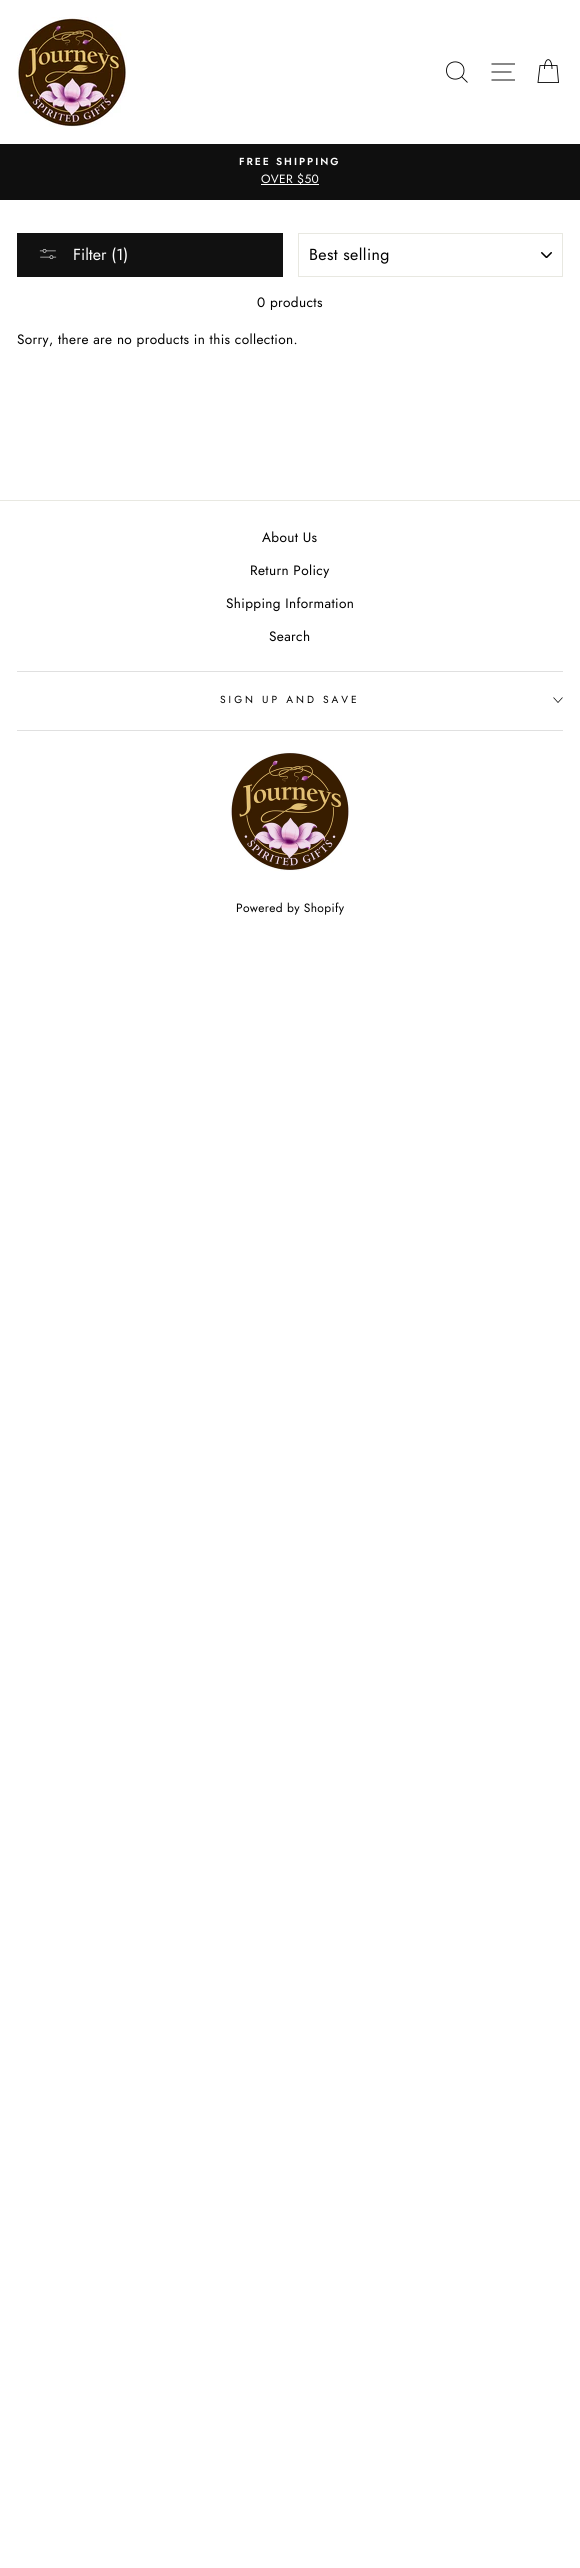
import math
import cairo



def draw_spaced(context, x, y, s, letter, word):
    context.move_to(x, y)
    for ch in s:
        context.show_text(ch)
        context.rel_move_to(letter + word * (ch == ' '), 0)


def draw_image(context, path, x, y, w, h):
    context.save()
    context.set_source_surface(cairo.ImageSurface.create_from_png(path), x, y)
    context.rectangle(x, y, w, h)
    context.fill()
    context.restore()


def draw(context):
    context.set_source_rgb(1, 1, 1)
    context.paint()
    draw_image(context, "images/1.png", 17, 17, 110, 110)
    context.new_path()
    context.move_to(464, 70.5)
    context.curve_to(464, 82, 446.5, 82, 446.5, 70.5)
    context.curve_to(446.5, 59, 464, 59, 464, 70.5)
    context.close_path()
    context.move_to(467.5, 82.5)
    context.line_to(461.5, 76.5)
    context.set_source_rgb(0, 0, 0)
    context.set_line_width(0.9)
    context.stroke()
    context.new_path()
    context.move_to(491.5, 64)
    context.line_to(515, 64)
    context.move_to(491.5, 72)
    context.line_to(511.5, 72)
    context.move_to(491.5, 80)
    context.line_to(515, 80)
    context.move_to(544.5, 69)
    context.curve_to(544.5, 56.5, 552, 56.5, 552, 69)
    context.stroke()
    context.new_path()
    context.move_to(540, 65.5)
    context.line_to(557, 65.5)
    context.line_to(558.5, 82.5)
    context.line_to(538, 82.5)
    context.close_path()
    context.stroke()
    context.set_source_rgb(15 / 255, 15 / 255, 15 / 255)
    context.rectangle(0, 144, 580, 56)
    context.fill()
    context.set_source_rgb(1, 1, 1)
    context.rectangle(261, 184, 58, 1)
    context.fill()
    context.set_source_rgb(17 / 255, 17 / 255, 17 / 255)
    context.rectangle(17, 233, 266, 44)
    context.fill()
    draw_image(context, "images/2.png", 39, 249, 18, 10)
    draw_image(context, "images/3.png", 541, 252, 11, 6)
    context.rectangle(298.5, 233.5, 264, 43)
    context.set_source_rgb(232 / 255, 232 / 255, 225 / 255)
    context.set_line_width(1)
    context.stroke()
    context.rectangle(0, 500, 580, 1)
    context.fill()
    context.set_source_rgb(224 / 255, 224 / 255, 224 / 255)
    context.rectangle(17, 671, 546, 1)
    context.fill()
    context.new_path()
    context.move_to(553.5, 697.5)
    context.line_to(558, 702.5)
    context.line_to(562.5, 697.5)
    context.set_source_rgb(0, 0, 0)
    context.set_line_width(0.7)
    context.stroke()
    context.set_source_rgb(224 / 255, 224 / 255, 224 / 255)
    context.rectangle(17, 730, 546, 1)
    context.fill()
    draw_image(context, "images/4.png", 230, 751, 120, 120)
    context.select_font_face("Jost SemiBold")
    context.set_font_size(10.25)
    context.set_source_rgb(1, 1, 1)
    draw_spaced(context, 239, 165, "FREE SHIPPING", 2, 0)
    context.select_font_face("Jost")
    context.set_font_size(12)
    draw_spaced(context, 261, 183, "OVER $50", 0.35, 0)
    context.set_font_size(16)
    context.move_to(73, 260)
    context.show_text("Filter (1)")
    context.set_source_rgb(0, 0, 0)
    draw_spaced(context, 309, 260, "Best selling", 0.4, 0)
    context.set_font_size(13.6)
    draw_spaced(context, 257, 307, "0 products", 0.35, 0)
    draw_spaced(context, 17, 344, "Sorry, there are no products in this collection.", 0.35, 0)
    draw_spaced(context, 262, 542, "About Us", 0.35, 0)
    draw_spaced(context, 250, 575, "Return Policy", 0.35, 0)
    draw_spaced(context, 226, 608, "Shipping Information", 0.35, 0)
    draw_spaced(context, 269, 641, "Search", 0.35, 0)
    context.set_font_size(10.25)
    draw_spaced(context, 220, 703, "SIGN UP AND SAVE", 3, 0)
    context.set_font_size(12)
    draw_spaced(context, 236, 912, "Powered by Shopify", 0.35, 0)


surface = cairo.ImageSurface(cairo.Format.RGB24, 580, 2568)
context = cairo.Context(surface)
options = cairo.FontOptions()
options.set_hint_metrics(cairo.HintMetrics.OFF)
options.set_hint_style(cairo.HintStyle.NONE)
context.set_font_options(options)
context.set_miter_limit(4)
draw(context)
surface.write_to_png("out.png")
